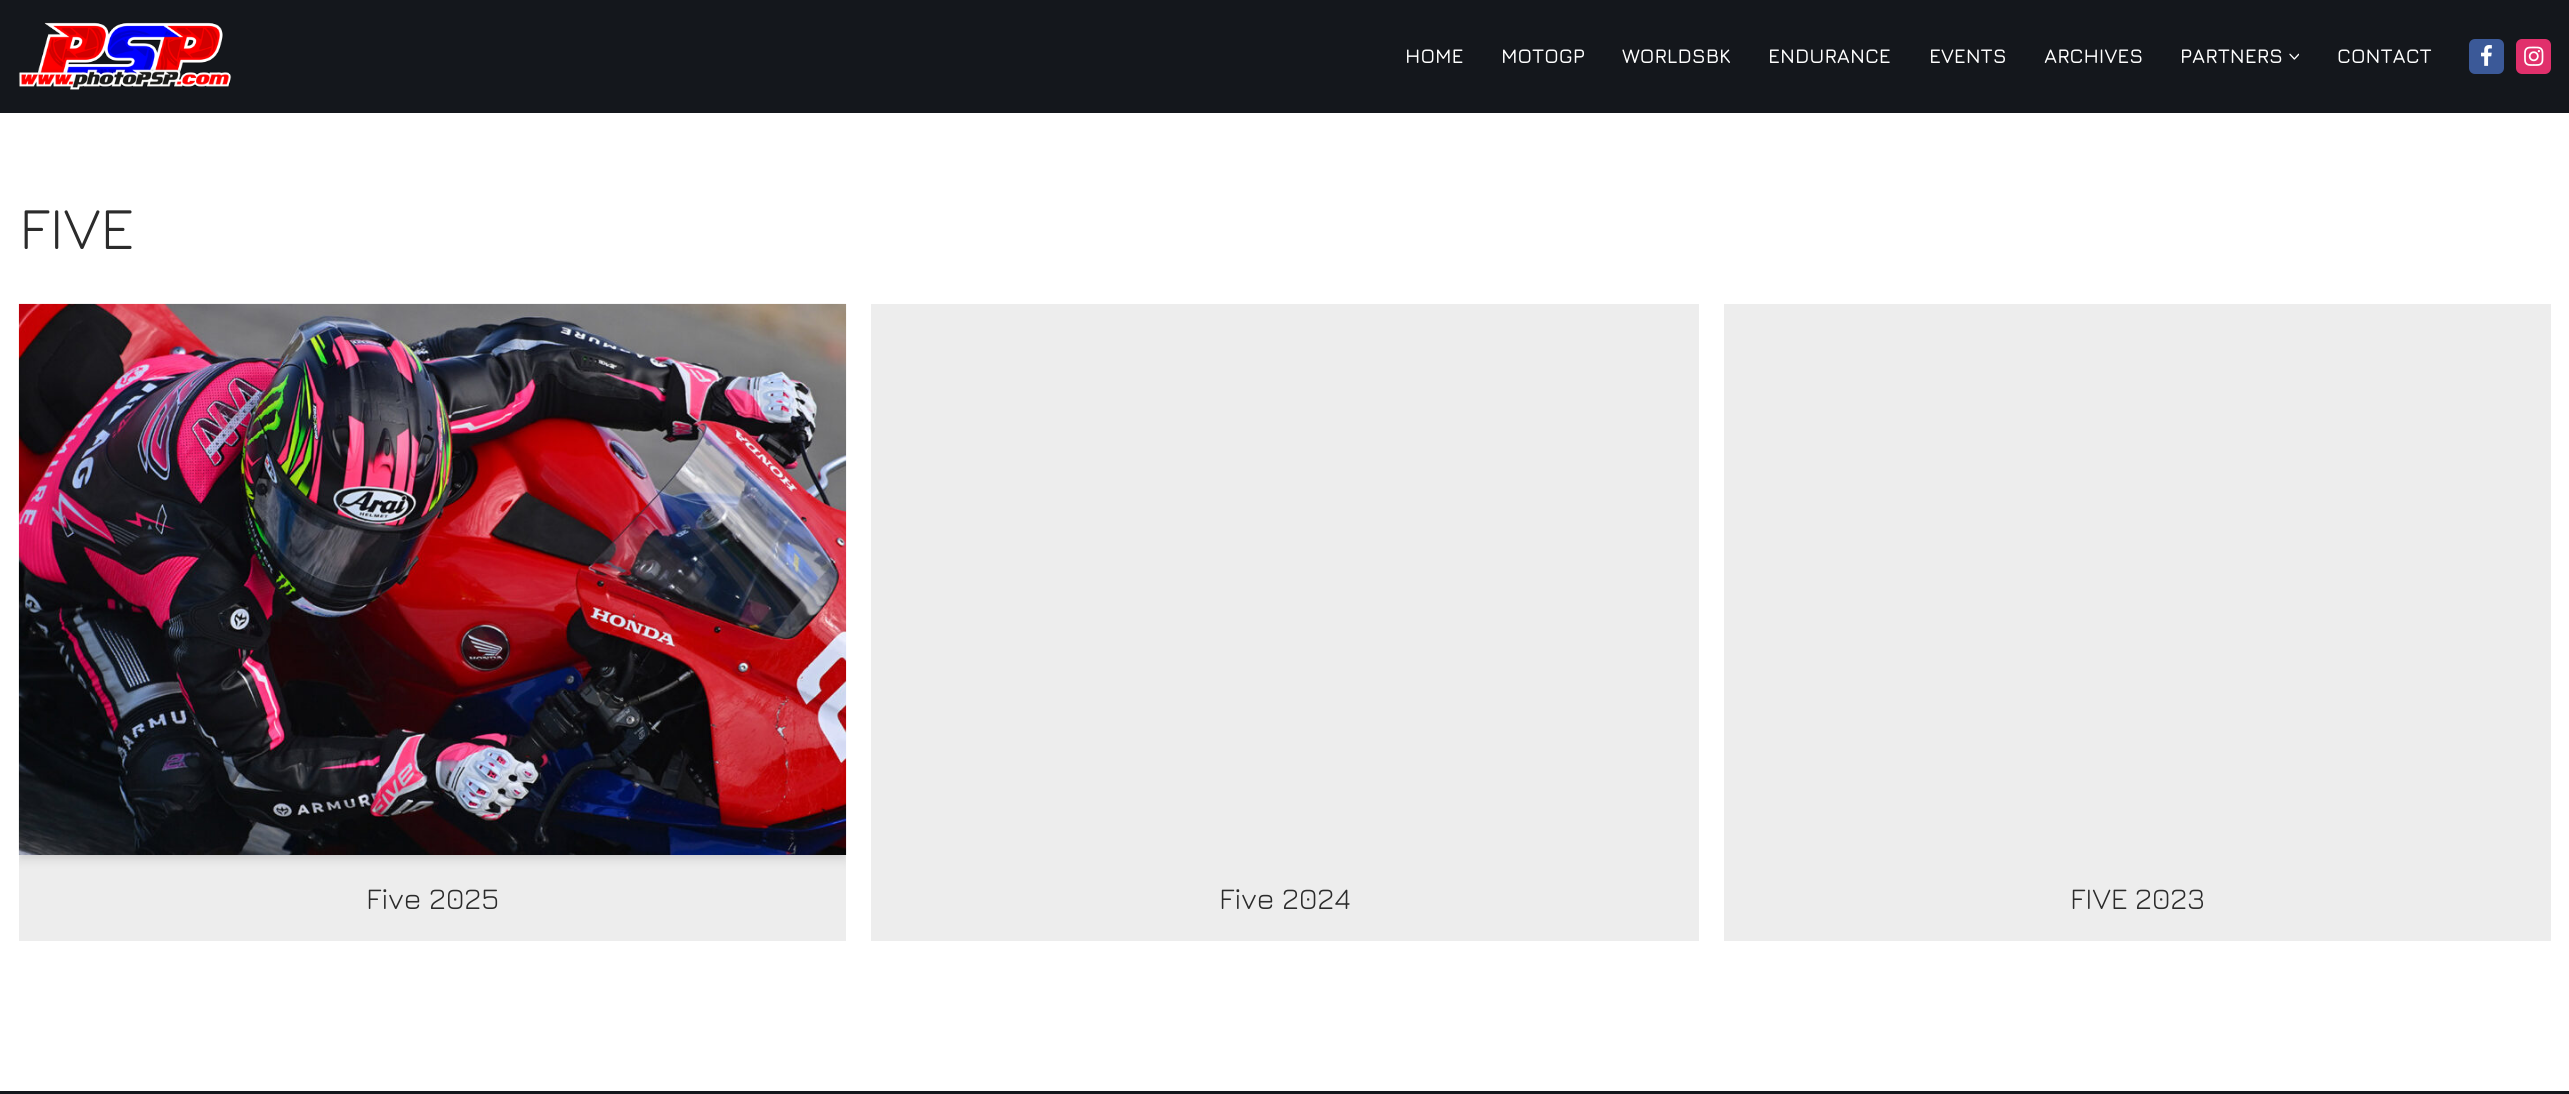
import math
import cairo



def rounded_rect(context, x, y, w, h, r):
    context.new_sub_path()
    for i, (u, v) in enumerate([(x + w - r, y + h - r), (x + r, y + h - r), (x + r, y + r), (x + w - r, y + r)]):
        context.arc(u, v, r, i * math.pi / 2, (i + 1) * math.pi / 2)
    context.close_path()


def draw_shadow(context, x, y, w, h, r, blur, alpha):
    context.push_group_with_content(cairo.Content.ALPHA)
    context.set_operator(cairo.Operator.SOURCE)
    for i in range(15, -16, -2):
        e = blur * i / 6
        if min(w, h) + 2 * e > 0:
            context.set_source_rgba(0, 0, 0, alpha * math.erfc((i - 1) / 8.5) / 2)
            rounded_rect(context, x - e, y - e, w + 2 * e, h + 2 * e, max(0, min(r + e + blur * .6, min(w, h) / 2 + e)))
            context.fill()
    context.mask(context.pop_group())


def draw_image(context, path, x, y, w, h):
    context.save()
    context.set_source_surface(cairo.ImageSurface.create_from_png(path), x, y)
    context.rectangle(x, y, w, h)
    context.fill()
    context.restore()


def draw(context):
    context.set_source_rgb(1, 1, 1)
    context.paint()
    context.set_source_rgb(20 / 255, 23 / 255, 28 / 255)
    context.rectangle(0, 0, 2569, 113)
    context.fill()
    draw_image(context, "images/1.png", 18, 22, 214, 68)
    draw_image(context, "images/2.png", 2289, 53, 10, 7)
    context.set_source_rgb(59 / 255, 89 / 255, 152 / 255)
    rounded_rect(context, 2469, 39, 35, 35, 6)
    context.fill()
    draw_image(context, "images/3.png", 2481, 45, 11, 21)
    context.set_source_rgb(225 / 255, 48 / 255, 108 / 255)
    rounded_rect(context, 2516, 39, 35, 35, 6)
    context.fill()
    draw_image(context, "images/4.png", 2524, 46, 20, 20)
    context.set_source_rgb(237 / 255, 237 / 255, 237 / 255)
    context.rectangle(19, 855, 827, 86)
    context.fill()
    context.save()
    context.rectangle(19, 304, 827, 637)
    context.clip()
    context.set_source_rgb(0, 0, 0)
    draw_shadow(context, 19, 309, 827, 551, 0, 5, 0.1)
    context.restore()
    context.set_source_rgb(0, 0, 0)
    draw_shadow(context, 25, 314, 815, 539, 0, 4, 0.1)
    draw_image(context, "images/5.png", 18, 303, 829, 552)
    context.set_source_rgb(237 / 255, 237 / 255, 237 / 255)
    context.rectangle(871, 304, 828, 637)
    context.fill()
    context.rectangle(1724, 304, 827, 637)
    context.fill()
    context.set_source_rgb(20 / 255, 23 / 255, 28 / 255)
    context.rectangle(0, 1091, 2569, 3)
    context.fill()
    context.select_font_face("Jura SemiBold")
    context.set_font_size(20.25)
    context.set_source_rgb(1, 1, 1)
    context.move_to(1405, 63)
    context.show_text("HOME")
    context.move_to(1501, 63)
    context.show_text("MOTOGP")
    context.move_to(1622, 63)
    context.show_text("WORLDSBK")
    context.move_to(1768, 63)
    context.show_text("ENDURANCE")
    context.move_to(1929, 63)
    context.show_text("EVENTS")
    context.move_to(2044, 63)
    context.show_text("ARCHIVES")
    context.move_to(2180, 63)
    context.show_text("PARTNERS")
    context.move_to(2337, 63)
    context.show_text("CONTACT")
    context.select_font_face("Jura")
    context.set_font_size(60)
    context.set_source_rgb(43 / 255, 43 / 255, 43 / 255)
    context.move_to(19, 249)
    context.show_text("FIVE")
    context.set_font_size(30)
    context.move_to(366, 909)
    context.show_text("Five 2025")
    context.move_to(1219, 909)
    context.show_text("Five 2024")
    context.move_to(2070, 909)
    context.show_text("FIVE 2023")


surface = cairo.ImageSurface(cairo.Format.RGB24, 2569, 1094)
context = cairo.Context(surface)
options = cairo.FontOptions()
options.set_hint_metrics(cairo.HintMetrics.OFF)
options.set_hint_style(cairo.HintStyle.NONE)
context.set_font_options(options)
context.set_miter_limit(4)
draw(context)
surface.write_to_png("out.png")
